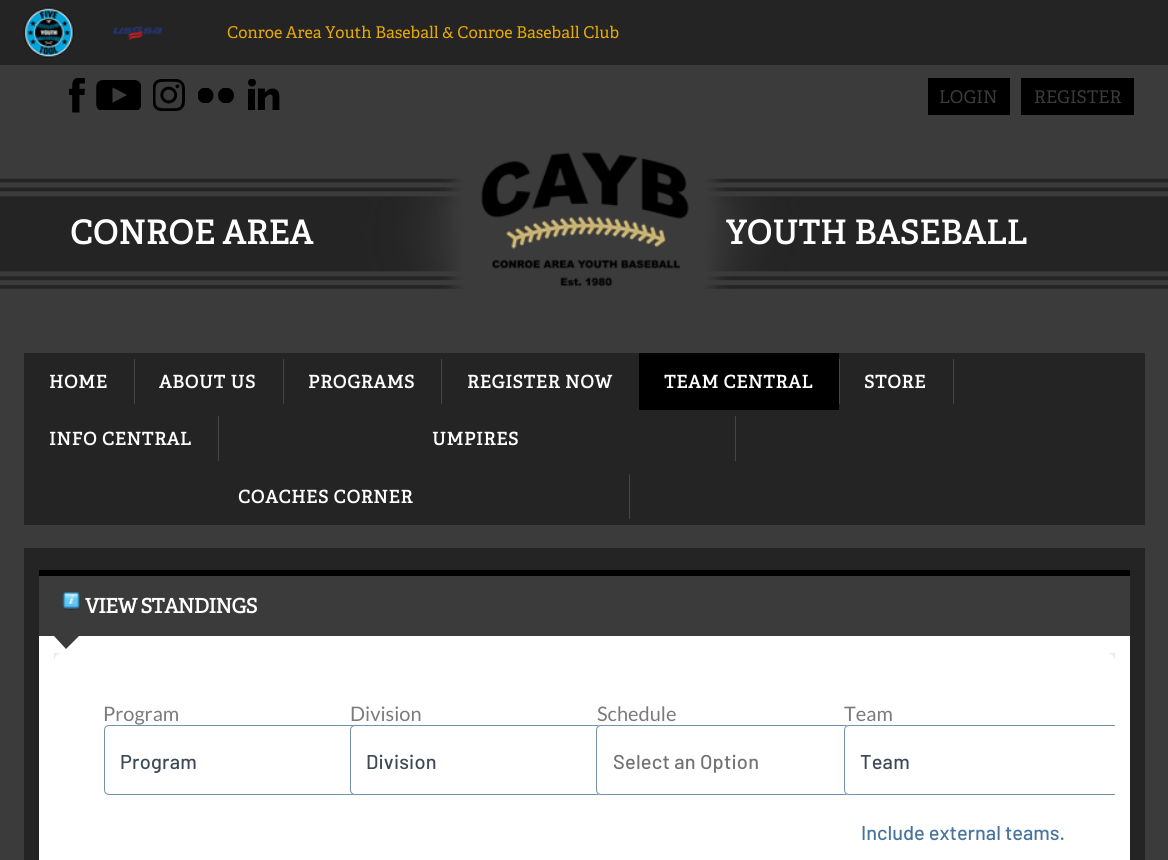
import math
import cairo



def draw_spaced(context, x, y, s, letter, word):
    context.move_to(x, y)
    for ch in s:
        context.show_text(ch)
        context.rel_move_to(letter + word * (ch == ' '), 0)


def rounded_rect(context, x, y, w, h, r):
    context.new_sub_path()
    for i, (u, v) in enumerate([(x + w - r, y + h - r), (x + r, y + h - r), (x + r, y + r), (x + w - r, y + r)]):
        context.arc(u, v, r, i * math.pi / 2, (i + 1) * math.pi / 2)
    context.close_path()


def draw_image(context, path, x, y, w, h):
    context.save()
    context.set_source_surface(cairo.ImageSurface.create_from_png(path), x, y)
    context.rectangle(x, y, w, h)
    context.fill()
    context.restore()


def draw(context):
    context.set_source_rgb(59 / 255, 59 / 255, 59 / 255)
    context.paint()
    context.set_source_rgb(36 / 255, 36 / 255, 36 / 255)
    context.rectangle(0, 0, 1168, 65)
    context.fill()
    draw_image(context, "images/1.png", 23, 7, 51, 51)
    draw_image(context, "images/2.png", 112, 26, 51, 15)
    draw_image(context, "images/3.png", 69, 78, 16, 35)
    draw_image(context, "images/4.png", 96, 80, 45, 30)
    draw_image(context, "images/5.png", 153, 79, 32, 32)
    context.save()
    context.rectangle(198, 88, 36, 15)
    context.clip()
    context.set_source_rgb(0, 0, 0)
    context.arc(205.5, 95.5, 8, 0, 2 * math.pi)
    context.fill()
    context.arc(226, 95.5, 8, 0, 2 * math.pi)
    context.fill()
    context.restore()
    draw_image(context, "images/6.png", 248, 79, 32, 31)
    context.set_source_rgb(0, 0, 0)
    context.rectangle(928, 78, 82, 37)
    context.fill()
    context.rectangle(1021, 78, 113, 37)
    context.fill()
    draw_image(context, "images/7.png", 0, 178, 1168, 111)
    draw_image(context, "images/8.png", 481, 152, 208, 135)
    context.set_source_rgb(36 / 255, 36 / 255, 36 / 255)
    context.rectangle(24, 353, 1121, 172)
    context.fill()
    context.set_source_rgb(69 / 255, 69 / 255, 69 / 255)
    context.rectangle(134, 359, 1, 45)
    context.fill()
    context.rectangle(283, 359, 1, 45)
    context.fill()
    context.rectangle(441, 359, 1, 45)
    context.fill()
    context.set_source_rgb(0, 0, 0)
    context.rectangle(639, 353, 200, 57)
    context.fill()
    context.set_source_rgb(69 / 255, 69 / 255, 69 / 255)
    context.rectangle(839, 359, 1, 45)
    context.fill()
    context.rectangle(953, 359, 1, 45)
    context.fill()
    context.rectangle(218, 416, 1, 45)
    context.fill()
    context.rectangle(735, 416, 1, 45)
    context.fill()
    context.rectangle(629, 474, 1, 45)
    context.fill()
    context.set_source_rgb(36 / 255, 36 / 255, 36 / 255)
    context.rectangle(24, 548, 1121, 312)
    context.fill()
    context.set_source_rgb(59 / 255, 59 / 255, 59 / 255)
    context.rectangle(39, 576, 1091, 60)
    context.fill()
    context.set_source_rgb(0, 0, 0)
    context.rectangle(39, 570, 1091, 6)
    context.fill()
    draw_image(context, "images/9.png", 62, 592, 18, 18)
    context.set_source_rgb(1, 1, 1)
    context.rectangle(39, 636, 1091, 224)
    context.fill()
    context.set_source_rgb(59 / 255, 59 / 255, 59 / 255)
    context.new_path()
    context.move_to(54, 636)
    context.line_to(79, 636)
    context.line_to(66, 649)
    context.close_path()
    context.fill()
    context.set_source_rgb(229 / 255, 235 / 255, 242 / 255)
    context.rectangle(54, 653, 1061, 8)
    context.fill()
    context.set_source_rgb(1, 1, 1)
    rounded_rect(context, 54, 653, 1061, 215, 8)
    context.fill()
    rounded_rect(context, 104.5, 725.5, 640, 69, 4.5)
    context.set_source_rgb(116 / 255, 146 / 255, 172 / 255)
    context.set_line_width(1)
    context.stroke()
    context.set_source_rgb(1, 1, 1)
    rounded_rect(context, 350.5, 725.5, 640, 69, 4.5)
    context.fill_preserve()
    context.set_source_rgb(116 / 255, 146 / 255, 172 / 255)
    context.stroke()
    context.set_source_rgb(1, 1, 1)
    context.new_path()
    context.move_to(601, 725)
    context.line_to(1115, 725)
    context.line_to(1115, 795)
    context.line_to(601, 795)
    context.curve_to(598, 795, 596, 793, 596, 790)
    context.line_to(596, 730)
    context.curve_to(596, 727, 598, 725, 601, 725)
    context.close_path()
    context.fill()
    context.save()
    context.rectangle(54, 651, 1061, 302)
    context.clip()
    rounded_rect(context, 596.5, 725.5, 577, 69, 4.5)
    context.set_source_rgb(116 / 255, 146 / 255, 172 / 255)
    context.stroke()
    context.restore()
    context.new_path()
    context.move_to(849, 725)
    context.line_to(1115, 725)
    context.line_to(1115, 795)
    context.line_to(849, 795)
    context.curve_to(846, 795, 844, 793, 844, 790)
    context.line_to(844, 730)
    context.curve_to(844, 727, 846, 725, 849, 725)
    context.close_path()
    context.fill()
    context.save()
    context.rectangle(54, 651, 1061, 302)
    context.clip()
    rounded_rect(context, 844.5, 725.5, 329, 69, 4.5)
    context.set_source_rgb(116 / 255, 146 / 255, 172 / 255)
    context.stroke()
    context.restore()
    context.select_font_face("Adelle")
    context.set_font_size(16.25)
    context.set_source_rgb(232 / 255, 170 / 255, 2 / 255)
    context.move_to(227, 38)
    context.show_text("Conroe Area Youth Baseball & Conroe Baseball Club")
    context.set_font_size(17.5)
    context.set_source_rgb(59 / 255, 59 / 255, 59 / 255)
    context.move_to(939, 103)
    context.show_text("LOGIN")
    context.move_to(1034, 103)
    context.show_text("REGISTER")
    context.select_font_face("Adelle", cairo.FontSlant.NORMAL, cairo.FontWeight.BOLD)
    context.set_font_size(32.5)
    context.set_source_rgb(1, 1, 1)
    draw_spaced(context, 70, 244, "CONROE AREA", 0.4, 0)
    draw_spaced(context, 726, 244, "YOUTH BASEBALL", 0.4, 0)
    context.set_font_size(17.5)
    draw_spaced(context, 49, 388, "HOME", 0.75, 0)
    draw_spaced(context, 159, 388, "ABOUT US", 0.75, 0)
    draw_spaced(context, 308, 388, "PROGRAMS", 0.75, 0)
    draw_spaced(context, 467, 388, "REGISTER NOW", 0.75, 0)
    draw_spaced(context, 664, 388, "TEAM CENTRAL", 0.75, 0)
    draw_spaced(context, 864, 388, "STORE", 0.75, 0)
    draw_spaced(context, 49, 445, "INFO CENTRAL", 0.75, 0)
    draw_spaced(context, 432, 445, "UMPIRES", 0.75, 0)
    draw_spaced(context, 238, 503, "COACHES CORNER", 0.75, 0)
    context.set_font_size(20)
    draw_spaced(context, 85, 613, "VIEW STANDINGS", -0.6, 0)
    context.select_font_face("Lato")
    context.set_source_rgb(123 / 255, 123 / 255, 123 / 255)
    context.move_to(103, 721)
    context.show_text("Program")
    context.select_font_face("Barlow Medium")
    context.set_source_rgb(61 / 255, 73 / 255, 86 / 255)
    draw_spaced(context, 120, 769, "Program", 0.2, 0)
    context.select_font_face("Lato")
    context.set_source_rgb(123 / 255, 123 / 255, 123 / 255)
    context.move_to(350, 721)
    context.show_text("Division")
    context.select_font_face("Barlow Medium")
    context.set_source_rgb(61 / 255, 73 / 255, 86 / 255)
    draw_spaced(context, 366, 769, "Division", 0.2, 0)
    context.select_font_face("Lato")
    context.set_source_rgb(123 / 255, 123 / 255, 123 / 255)
    context.move_to(597, 721)
    context.show_text("Schedule")
    context.select_font_face("Barlow Medium")
    context.set_source_rgb(115 / 255, 114 / 255, 114 / 255)
    draw_spaced(context, 613, 769, "Select an Option", 0.2, 0)
    context.select_font_face("Lato")
    context.set_source_rgb(123 / 255, 123 / 255, 123 / 255)
    context.move_to(844, 721)
    context.show_text("Team")
    context.select_font_face("Barlow Medium")
    context.set_source_rgb(61 / 255, 73 / 255, 86 / 255)
    draw_spaced(context, 860, 769, "Team", 0.2, 0)
    context.set_source_rgb(72 / 255, 116 / 255, 155 / 255)
    context.move_to(861, 840)
    context.show_text("Include external teams.")


surface = cairo.ImageSurface(cairo.Format.RGB24, 1168, 860)
context = cairo.Context(surface)
options = cairo.FontOptions()
options.set_hint_metrics(cairo.HintMetrics.OFF)
options.set_hint_style(cairo.HintStyle.NONE)
context.set_font_options(options)
context.set_miter_limit(4)
draw(context)
surface.write_to_png("out.png")
